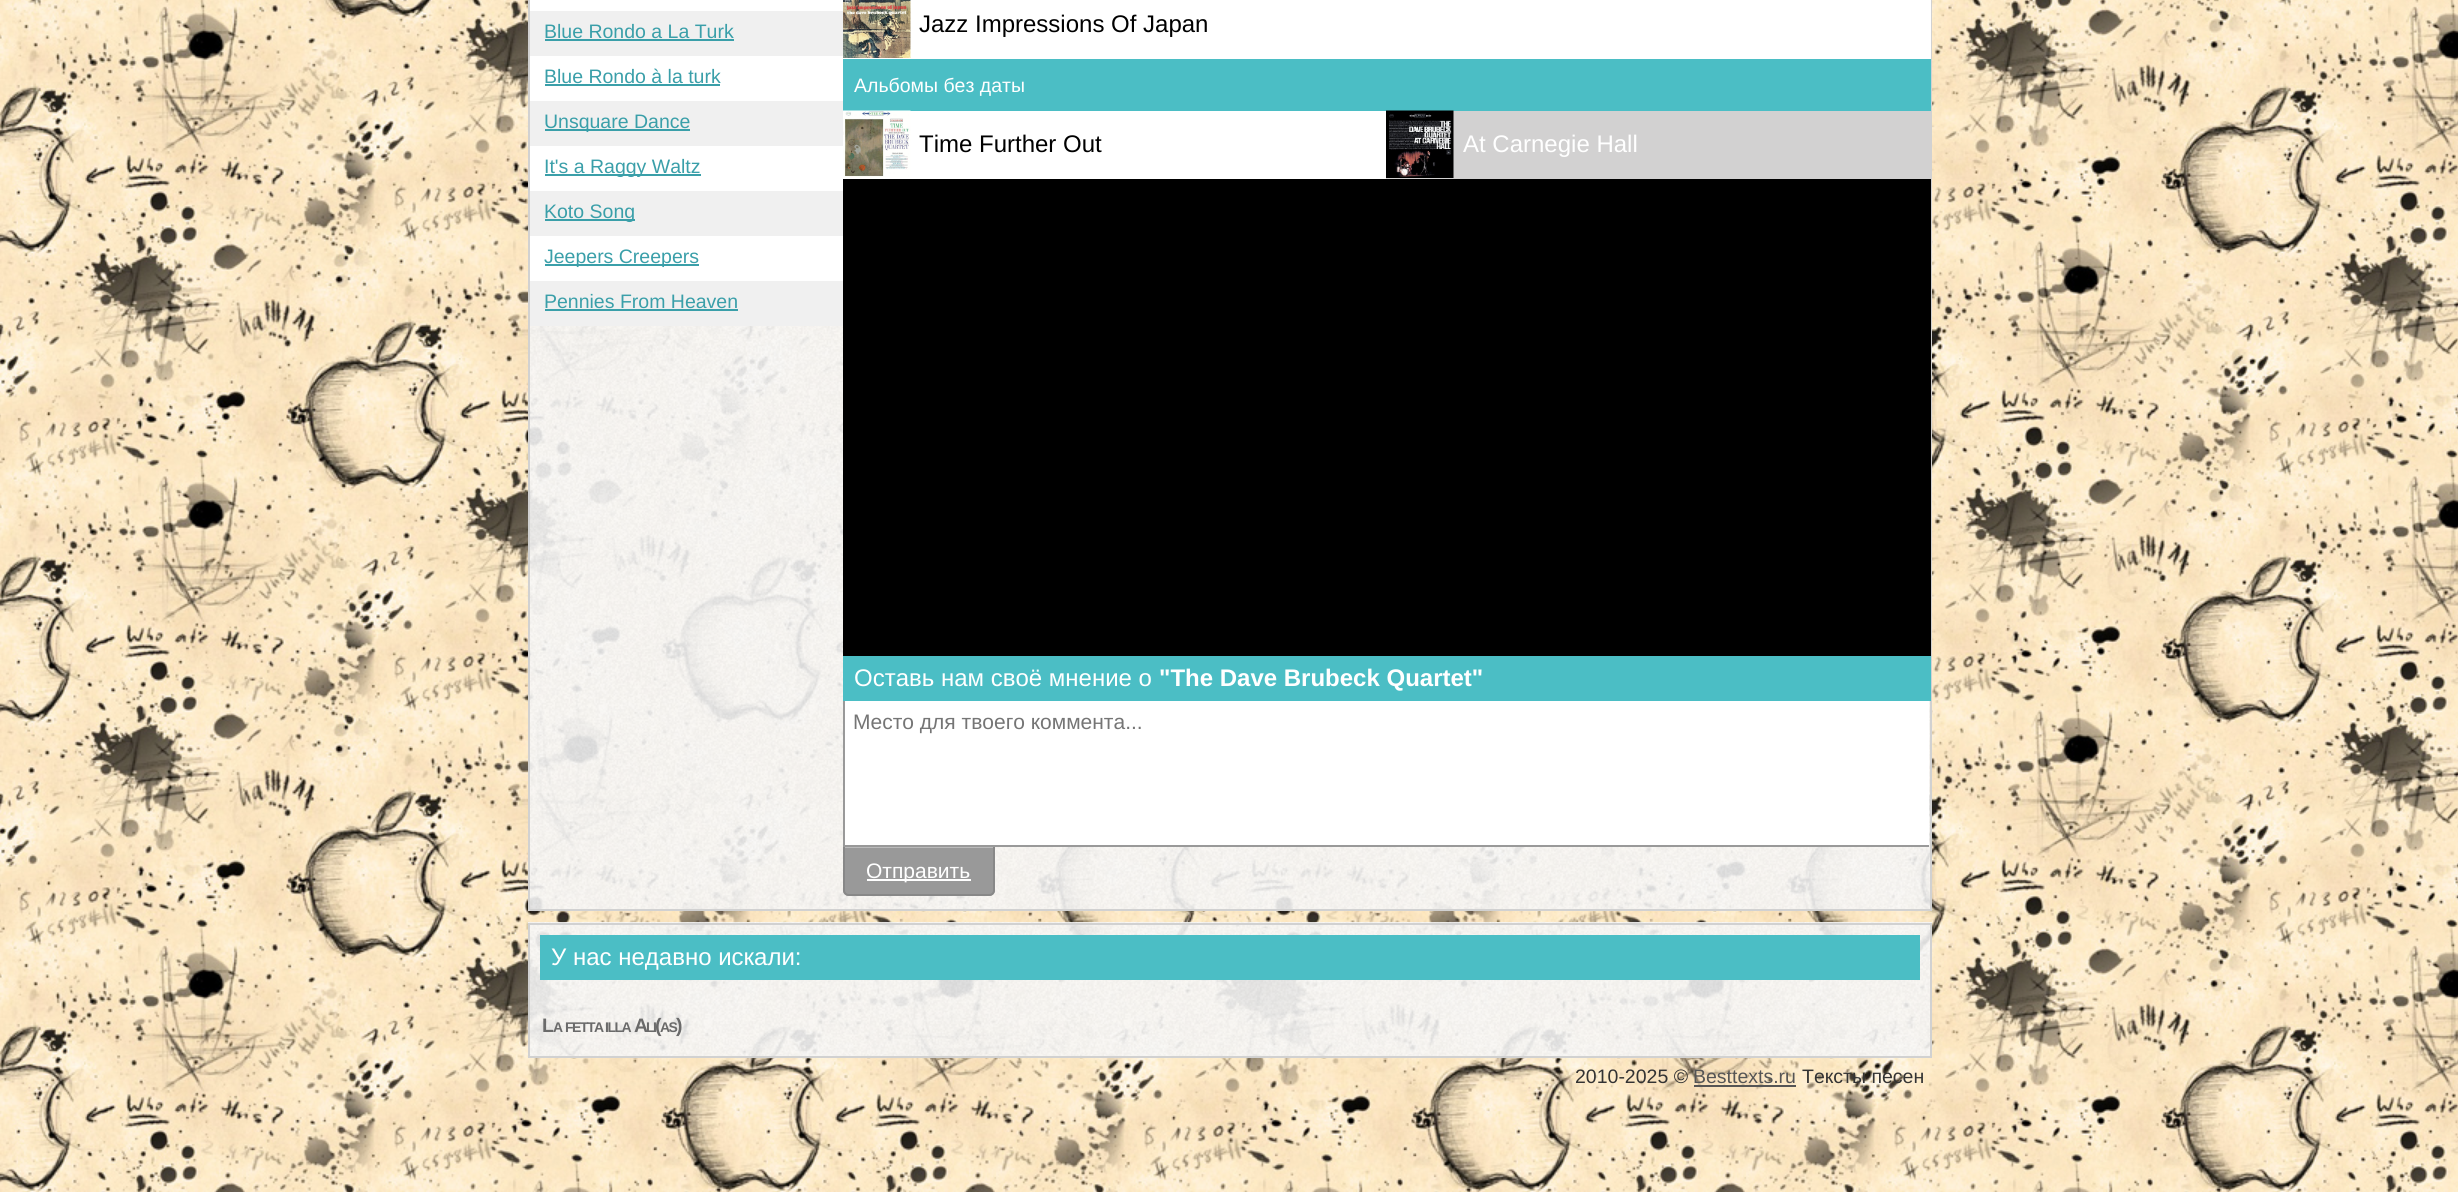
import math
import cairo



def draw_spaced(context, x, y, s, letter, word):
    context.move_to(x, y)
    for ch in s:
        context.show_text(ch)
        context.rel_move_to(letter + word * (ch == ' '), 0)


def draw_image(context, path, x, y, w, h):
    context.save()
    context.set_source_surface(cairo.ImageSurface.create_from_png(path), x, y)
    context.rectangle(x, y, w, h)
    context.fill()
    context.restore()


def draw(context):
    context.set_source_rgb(1, 1, 1)
    context.paint()
    draw_image(context, "images/1.png", 0, 0, 2458, 1192)
    draw_image(context, "images/2.png", 530, 326, 1400, 583)
    context.rectangle(529, -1, 1402, 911)
    context.set_source_rgb(209 / 255, 209 / 255, 209 / 255)
    context.stroke()
    context.set_source_rgb(1, 1, 1)
    context.rectangle(530, 0, 313, 281)
    context.fill()
    context.set_source_rgb(240 / 255, 240 / 255, 240 / 255)
    context.rectangle(530, 11, 313, 45)
    context.fill()
    context.set_source_rgb(58 / 255, 159 / 255, 169 / 255)
    context.rectangle(545, 39, 189, 2)
    context.fill()
    context.rectangle(545, 84, 175, 2)
    context.fill()
    context.set_source_rgb(240 / 255, 240 / 255, 240 / 255)
    context.rectangle(530, 101, 313, 45)
    context.fill()
    context.set_source_rgb(58 / 255, 159 / 255, 169 / 255)
    context.rectangle(545, 129, 145, 2)
    context.fill()
    context.rectangle(545, 174, 156, 2)
    context.fill()
    context.set_source_rgb(240 / 255, 240 / 255, 240 / 255)
    context.rectangle(530, 191, 313, 45)
    context.fill()
    context.set_source_rgb(58 / 255, 159 / 255, 169 / 255)
    context.rectangle(545, 219, 90, 2)
    context.fill()
    context.rectangle(545, 264, 154, 2)
    context.fill()
    context.set_source_rgb(240 / 255, 240 / 255, 240 / 255)
    context.rectangle(530, 281, 313, 45)
    context.fill()
    context.set_source_rgb(58 / 255, 159 / 255, 169 / 255)
    context.rectangle(545, 309, 193, 2)
    context.fill()
    context.set_source_rgb(1, 1, 1)
    context.rectangle(843, 0, 1088, 179)
    context.fill()
    draw_image(context, "images/3.png", 843, 0, 68, 58)
    context.set_source_rgb(75 / 255, 190 / 255, 197 / 255)
    context.rectangle(843, 59, 1088, 52)
    context.fill()
    draw_image(context, "images/4.png", 843, 110, 68, 68)
    context.set_source_rgb(210 / 255, 209 / 255, 209 / 255)
    context.rectangle(1386, 111, 545, 68)
    context.fill()
    draw_image(context, "images/5.png", 1386, 110, 68, 68)
    context.set_source_rgb(0, 0, 0)
    context.rectangle(843, 179, 1088, 477)
    context.fill()
    context.set_source_rgb(75 / 255, 190 / 255, 197 / 255)
    context.rectangle(843, 656, 1088, 45)
    context.fill()
    context.set_source_rgb(1, 1, 1)
    context.rectangle(845, 701, 1084, 144)
    context.fill()
    context.set_source_rgb(153 / 255, 153 / 255, 153 / 255)
    context.new_path()
    context.move_to(843, 845)
    context.line_to(995, 845)
    context.line_to(995, 890)
    context.curve_to(995, 893.5, 992.5, 896, 989, 896)
    context.line_to(849, 896)
    context.curve_to(845.5, 896, 843, 893.5, 843, 890)
    context.close_path()
    context.fill()
    context.set_source_rgb(187 / 255, 187 / 255, 187 / 255)
    context.rectangle(845, 847, 148, 1)
    context.fill()
    context.new_path()
    context.move_to(844, 846)
    context.line_to(994, 846)
    context.line_to(994, 890)
    context.curve_to(994, 893, 992, 895, 989, 895)
    context.line_to(849, 895)
    context.curve_to(846, 895, 844, 893, 844, 890)
    context.close_path()
    context.set_source_rgb(136 / 255, 136 / 255, 136 / 255)
    context.stroke()
    context.set_source_rgb(153 / 255, 153 / 255, 153 / 255)
    context.rectangle(843, 845, 1086, 2)
    context.fill()
    context.rectangle(843, 701, 2, 145)
    context.fill()
    context.set_source_rgb(1, 1, 1)
    context.rectangle(867, 879, 104, 2)
    context.fill()
    draw_image(context, "images/6.png", 528, 922, 1404, 134)
    context.rectangle(529, 924, 1402, 133)
    context.set_source_rgb(209 / 255, 209 / 255, 209 / 255)
    context.stroke()
    context.set_source_rgb(75 / 255, 190 / 255, 197 / 255)
    context.rectangle(540, 935, 1380, 45)
    context.fill()
    context.set_source_rgb(85 / 255, 85 / 255, 85 / 255)
    context.rectangle(1694, 1085, 102, 2)
    context.fill()
    context.select_font_face("Liberation Sans")
    context.set_font_size(19.5)
    context.set_source_rgb(58 / 255, 159 / 255, 169 / 255)
    context.move_to(544, 38)
    context.show_text("Blue Rondo a La Turk")
    context.move_to(544, 83)
    context.show_text("Blue Rondo à la turk")
    context.move_to(544, 128)
    context.show_text("Unsquare Dance")
    context.move_to(544, 173)
    context.show_text("It's a Raggy Waltz")
    context.move_to(544, 218)
    context.show_text("Koto Song")
    context.move_to(544, 263)
    context.show_text("Jeepers Creepers")
    context.move_to(544, 308)
    context.show_text("Pennies From Heaven")
    context.set_font_size(24)
    context.set_source_rgb(0, 0, 0)
    context.move_to(919, 32)
    context.show_text("Jazz Impressions Of Japan")
    context.set_font_size(19.5)
    context.set_source_rgb(1, 1, 1)
    context.move_to(854, 92)
    context.show_text("Альбомы без даты")
    context.set_font_size(24)
    context.set_source_rgb(0, 0, 0)
    context.move_to(919, 152)
    context.show_text("Time Further Out")
    context.set_source_rgb(1, 1, 1)
    context.move_to(1463, 152)
    context.show_text("At Carnegie Hall")
    context.move_to(854, 686)
    context.show_text("Оставь нам своё мнение о")
    context.select_font_face("Liberation Sans", cairo.FontSlant.NORMAL, cairo.FontWeight.BOLD)
    context.move_to(1159, 686)
    context.show_text("\"The Dave Brubeck Quartet\"")
    context.select_font_face("Liberation Sans")
    context.set_font_size(21)
    context.set_source_rgb(117 / 255, 117 / 255, 117 / 255)
    context.move_to(853, 729)
    context.show_text("Место для твоего коммента...")
    context.set_source_rgb(1, 1, 1)
    context.move_to(866, 878)
    context.show_text("Отправить")
    context.set_font_size(24)
    context.move_to(551, 965)
    context.show_text("У нас недавно искали:")
    context.select_font_face("Liberation Sans", cairo.FontSlant.NORMAL, cairo.FontWeight.BOLD)
    context.set_font_size(19.5)
    context.set_source_rgb(106 / 255, 106 / 255, 106 / 255)
    draw_spaced(context, 542, 1032, "L", -1.5, 0)
    context.set_font_size(14)
    draw_spaced(context, 553, 1032, "A", -1.5, 0)
    draw_spaced(context, 565, 1032, "FETTA", -1.5, 0)
    draw_spaced(context, 605, 1032, "ILLA", -1.5, 0)
    context.set_font_size(19.5)
    draw_spaced(context, 634, 1032, "A", -1.5, 0)
    context.set_font_size(14)
    draw_spaced(context, 646, 1032, "LI", -1.5, 0)
    context.set_font_size(19.5)
    draw_spaced(context, 655, 1032, "(", -1.5, 0)
    context.set_font_size(14)
    draw_spaced(context, 660, 1032, "AS", -1.5, 0)
    context.set_font_size(19.5)
    draw_spaced(context, 676, 1032, ")", -1.5, 0)
    context.select_font_face("Liberation Sans")
    context.set_source_rgb(51 / 255, 51 / 255, 51 / 255)
    context.move_to(1575, 1083)
    context.show_text("2010-2025 ©")
    context.set_source_rgb(85 / 255, 85 / 255, 85 / 255)
    context.move_to(1693, 1083)
    context.show_text("Besttexts.ru")
    context.set_source_rgb(51 / 255, 51 / 255, 51 / 255)
    context.move_to(1802, 1083)
    context.show_text("Тексты песен")


surface = cairo.ImageSurface(cairo.Format.RGB24, 2458, 1192)
context = cairo.Context(surface)
options = cairo.FontOptions()
options.set_hint_metrics(cairo.HintMetrics.OFF)
options.set_hint_style(cairo.HintStyle.NONE)
context.set_font_options(options)
context.set_miter_limit(4)
draw(context)
surface.write_to_png("out.png")
